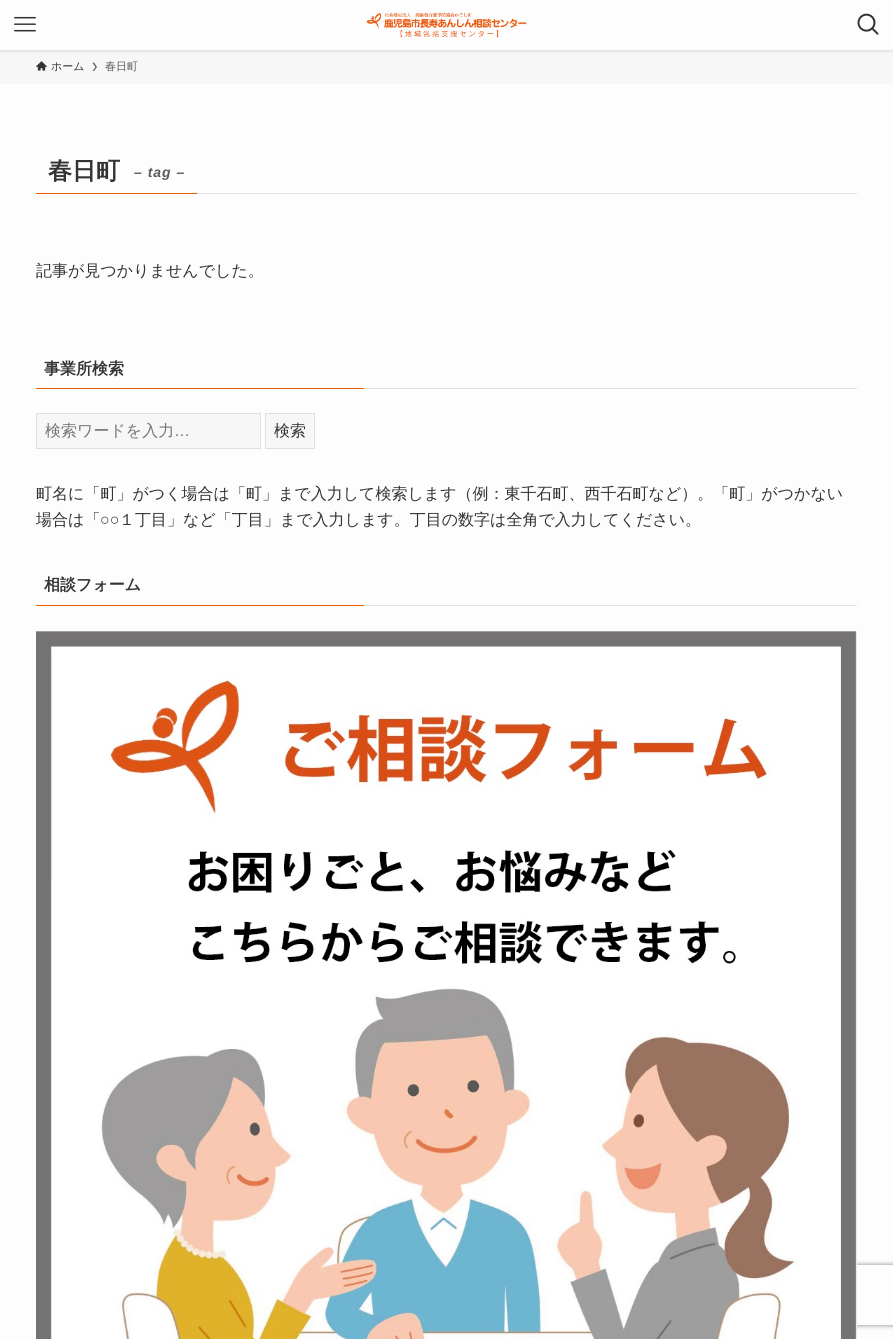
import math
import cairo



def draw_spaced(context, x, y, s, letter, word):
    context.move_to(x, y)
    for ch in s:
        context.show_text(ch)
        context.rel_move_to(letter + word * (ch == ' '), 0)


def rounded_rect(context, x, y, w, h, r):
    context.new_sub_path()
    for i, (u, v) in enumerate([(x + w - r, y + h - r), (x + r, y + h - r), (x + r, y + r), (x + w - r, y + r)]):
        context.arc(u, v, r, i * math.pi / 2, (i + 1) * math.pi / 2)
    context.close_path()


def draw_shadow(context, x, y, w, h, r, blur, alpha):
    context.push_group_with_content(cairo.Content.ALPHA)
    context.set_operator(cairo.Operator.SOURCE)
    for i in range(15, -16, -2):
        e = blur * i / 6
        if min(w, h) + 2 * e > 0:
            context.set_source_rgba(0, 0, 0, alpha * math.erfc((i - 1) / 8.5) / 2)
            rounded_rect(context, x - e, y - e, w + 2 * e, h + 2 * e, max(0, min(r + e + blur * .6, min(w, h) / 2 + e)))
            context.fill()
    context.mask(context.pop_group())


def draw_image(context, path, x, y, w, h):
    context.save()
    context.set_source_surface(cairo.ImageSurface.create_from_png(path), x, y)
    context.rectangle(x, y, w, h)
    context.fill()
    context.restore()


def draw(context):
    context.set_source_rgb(253 / 255, 253 / 255, 253 / 255)
    context.paint()
    context.set_source_rgb(247 / 255, 247 / 255, 247 / 255)
    context.rectangle(0, 50, 893, 34)
    context.fill()
    context.save()
    context.rectangle(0, 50, 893, 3)
    context.clip()
    context.set_source_rgb(0, 0, 0)
    draw_shadow(context, 0, 1, 893, 50, 0, 2, 0.12)
    context.restore()
    draw_image(context, "images/1.png", 14, 16, 22, 16)
    draw_image(context, "images/2.png", 366, 12, 161, 26)
    draw_image(context, "images/3.png", 857, 13, 22, 22)
    draw_image(context, "images/4.png", 36, 61, 11, 10)
    context.set_source_rgb(90 / 255, 90 / 255, 90 / 255)
    context.new_path()
    context.move_to(94, 62.5)
    context.line_to(92.5, 63)
    context.line_to(95.5, 67)
    context.line_to(92.5, 71)
    context.line_to(94, 71)
    context.line_to(97, 67)
    context.close_path()
    context.fill()
    context.set_source_rgb(226 / 255, 226 / 255, 226 / 255)
    context.rectangle(197, 193, 660, 1)
    context.fill()
    context.set_source_rgb(234 / 255, 93 / 255, 0)
    context.rectangle(36, 193, 161, 1)
    context.fill()
    context.rectangle(36, 388, 328, 1)
    context.fill()
    context.set_source_rgb(226 / 255, 226 / 255, 226 / 255)
    context.rectangle(364, 388, 493, 1)
    context.fill()
    context.set_source_rgb(247 / 255, 247 / 255, 247 / 255)
    context.rectangle(36.5, 413.5, 224, 35)
    context.fill_preserve()
    context.set_source_rgb(223 / 255, 223 / 255, 223 / 255)
    context.set_line_width(1)
    context.stroke()
    context.set_source_rgb(247 / 255, 247 / 255, 247 / 255)
    context.rectangle(265.5, 413.5, 49, 35)
    context.fill_preserve()
    context.set_source_rgb(223 / 255, 223 / 255, 223 / 255)
    context.stroke()
    context.set_source_rgb(234 / 255, 93 / 255, 0)
    context.rectangle(36, 605, 328, 1)
    context.fill()
    context.set_source_rgb(226 / 255, 226 / 255, 226 / 255)
    context.rectangle(364, 605, 493, 1)
    context.fill()
    context.save()
    context.set_fill_rule(cairo.FillRule.EVEN_ODD)
    context.new_path()
    context.move_to(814, 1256)
    context.line_to(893, 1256)
    context.line_to(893, 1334)
    context.line_to(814, 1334)
    context.close_path()
    context.move_to(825, 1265)
    context.line_to(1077, 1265)
    context.curve_to(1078, 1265, 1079, 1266, 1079, 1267)
    context.line_to(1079, 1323)
    context.curve_to(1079, 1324, 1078, 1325, 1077, 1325)
    context.line_to(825, 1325)
    context.curve_to(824, 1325, 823, 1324, 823, 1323)
    context.line_to(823, 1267)
    context.curve_to(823, 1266, 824, 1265, 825, 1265)
    context.close_path()
    context.clip()
    context.set_source_rgb(128 / 255, 128 / 255, 128 / 255)
    draw_shadow(context, 823, 1265, 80, 60, 2, 2.5, 1)
    context.restore()
    draw_image(context, "images/5.png", 36, 631, 821, 708)
    context.select_font_face("WenQuanYi Zen Hei Medium")
    context.set_font_size(11)
    context.set_source_rgb(51 / 255, 51 / 255, 51 / 255)
    context.move_to(51, 70)
    context.show_text("ホーム")
    context.set_source_rgb(90 / 255, 90 / 255, 90 / 255)
    context.move_to(105, 70)
    context.show_text("春日町")
    context.select_font_face("WenQuanYi Zen Hei", cairo.FontSlant.NORMAL, cairo.FontWeight.BOLD)
    context.set_font_size(24)
    context.set_source_rgb(51 / 255, 51 / 255, 51 / 255)
    context.move_to(48, 179)
    context.show_text("春日町")
    context.select_font_face("Liberation Sans", cairo.FontSlant.ITALIC, cairo.FontWeight.BOLD)
    context.set_font_size(14)
    context.set_source_rgb(90 / 255, 90 / 255, 90 / 255)
    draw_spaced(context, 134, 177, "– tag –", 1, 0)
    context.select_font_face("WenQuanYi Zen Hei Medium")
    context.set_font_size(16)
    context.set_source_rgb(51 / 255, 51 / 255, 51 / 255)
    context.move_to(36, 276)
    context.show_text("記事が見つかりませんでした。")
    context.select_font_face("WenQuanYi Zen Hei", cairo.FontSlant.NORMAL, cairo.FontWeight.BOLD)
    context.move_to(44, 374)
    context.show_text("事業所検索")
    context.select_font_face("WenQuanYi Zen Hei Medium")
    context.set_source_rgb(117 / 255, 117 / 255, 117 / 255)
    context.move_to(45, 436)
    context.show_text("検索ワードを入力")
    context.select_font_face("Liberation Sans")
    context.move_to(174, 436)
    context.show_text("…")
    context.select_font_face("WenQuanYi Zen Hei Medium")
    context.set_source_rgb(51 / 255, 51 / 255, 51 / 255)
    context.move_to(274, 436)
    context.show_text("検索")
    context.move_to(36, 499)
    context.show_text("町名に「町」がつく場合は「町」まで入力して検索します（例：東千石町、西千石町など）。「町」がつかない")
    context.move_to(36, 525)
    context.show_text("場合は「")
    context.select_font_face("Liberation Sans")
    context.move_to(100, 525)
    context.show_text("○○")
    context.select_font_face("WenQuanYi Zen Hei Medium")
    context.move_to(119, 525)
    context.show_text("１丁目」など「丁目」まで入力します。丁目の数字は全角で入力してください。")
    context.select_font_face("WenQuanYi Zen Hei", cairo.FontSlant.NORMAL, cairo.FontWeight.BOLD)
    context.move_to(44, 590)
    context.show_text("相談フォーム")


surface = cairo.ImageSurface(cairo.Format.RGB24, 893, 1339)
context = cairo.Context(surface)
options = cairo.FontOptions()
options.set_hint_metrics(cairo.HintMetrics.OFF)
options.set_hint_style(cairo.HintStyle.NONE)
context.set_font_options(options)
context.set_miter_limit(4)
draw(context)
surface.write_to_png("out.png")
